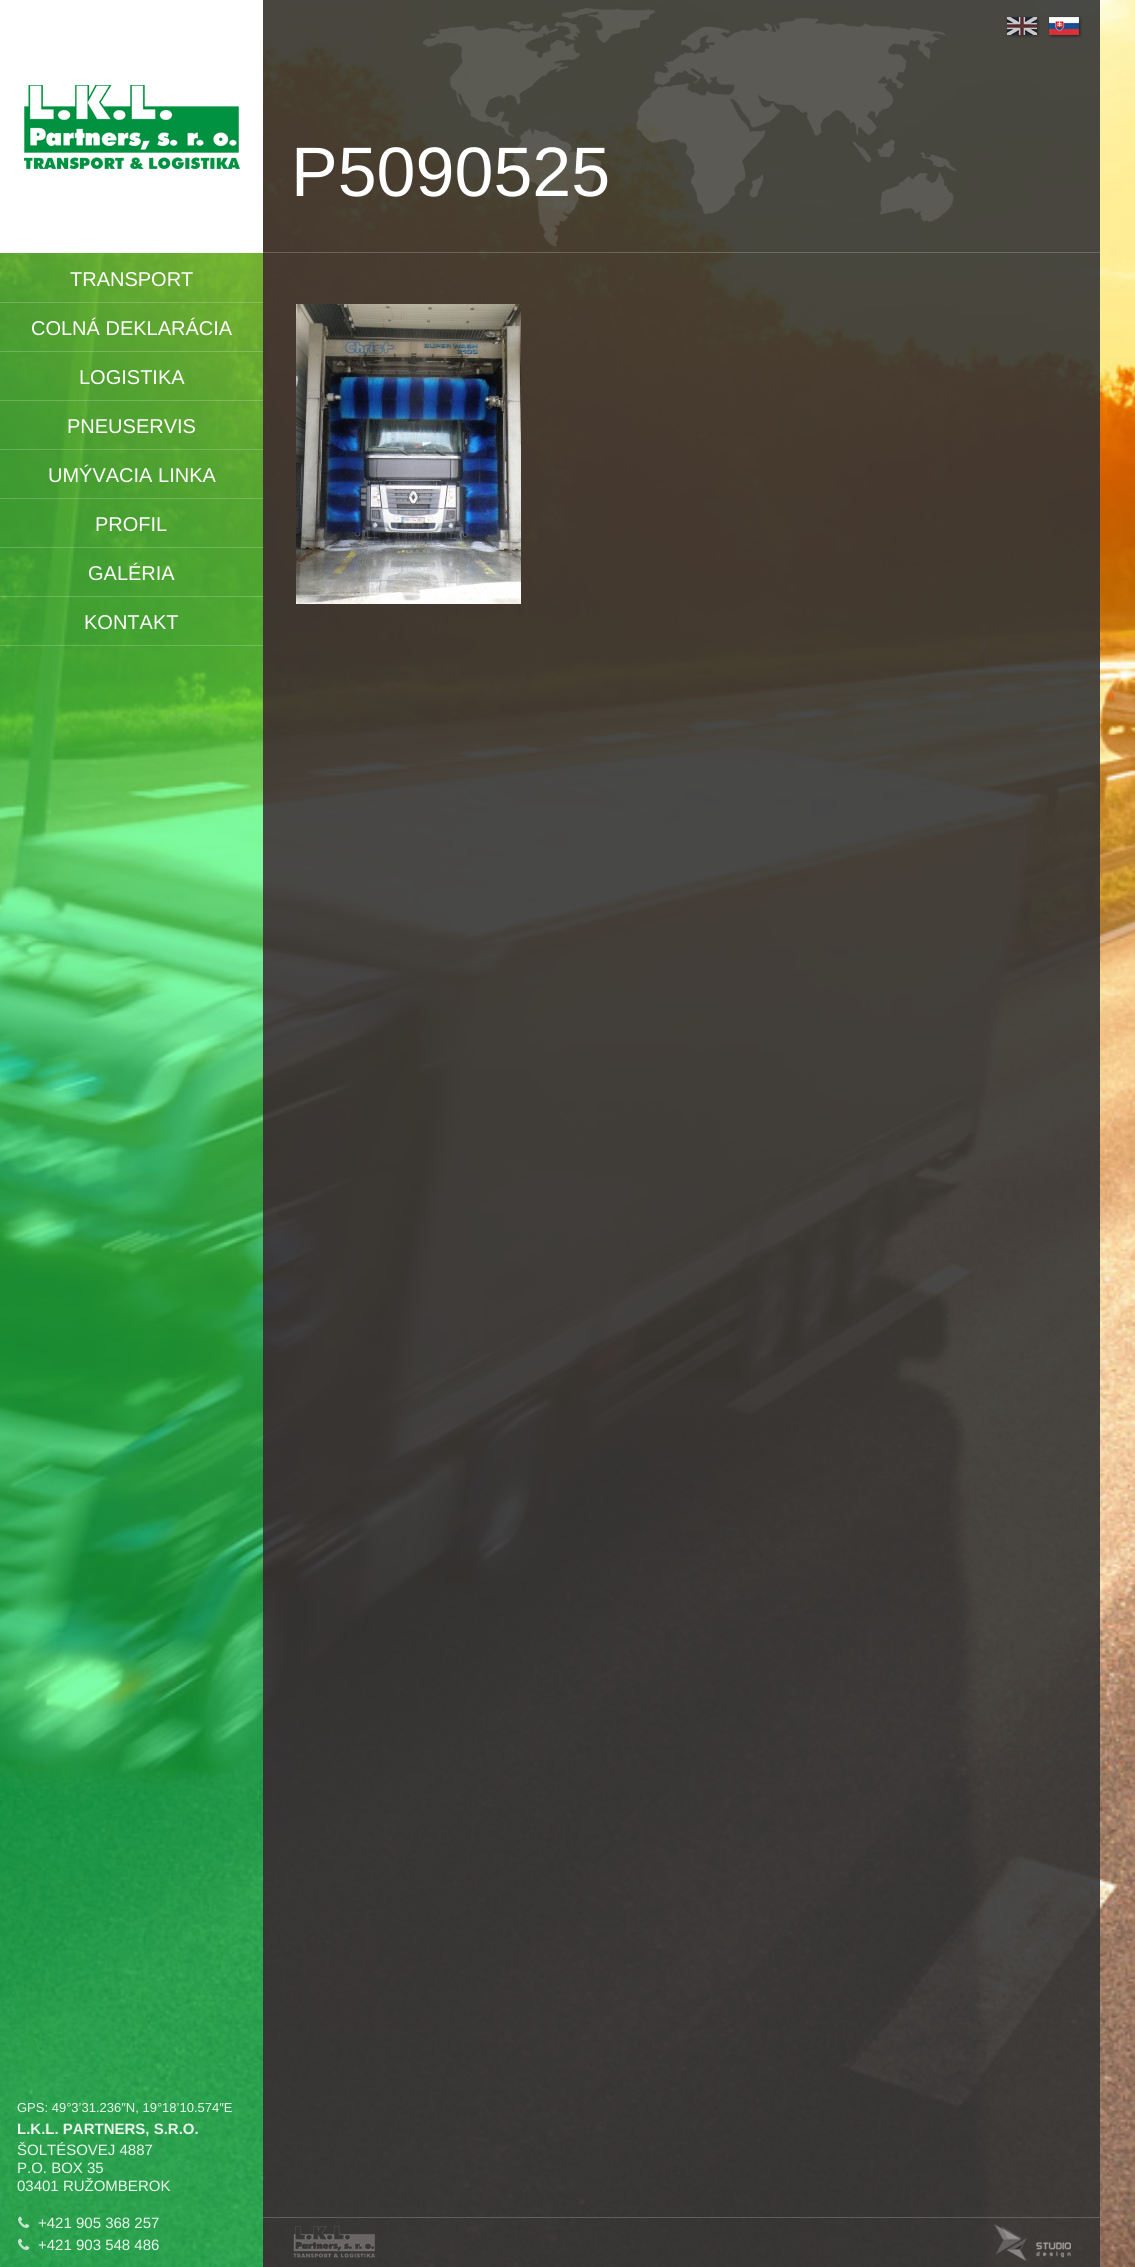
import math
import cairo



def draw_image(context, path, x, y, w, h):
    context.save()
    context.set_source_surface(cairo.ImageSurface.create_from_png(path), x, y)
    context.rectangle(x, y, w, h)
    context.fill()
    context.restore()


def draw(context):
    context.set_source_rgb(1, 1, 1)
    context.paint()
    draw_image(context, "images/1.png", 0, 0, 1135, 2267)
    context.set_source_rgba(53 / 255, 53 / 255, 53 / 255, 0.9)
    context.rectangle(263, 0, 837, 2267)
    context.fill()
    draw_image(context, "images/2.png", 423, 8, 534, 238)
    draw_image(context, "images/3.png", 1006, 16, 34, 22)
    draw_image(context, "images/4.png", 1048, 16, 34, 22)
    context.set_source_rgba(1, 1, 1, 0.2)
    context.rectangle(263, 252, 837, 1)
    context.fill()
    draw_image(context, "images/5.png", 296, 304, 225, 300)
    context.rectangle(263, 2217, 837, 1)
    context.fill()
    draw_image(context, "images/6.png", 293, 2226, 82, 32)
    draw_image(context, "images/7.png", 994, 2224, 77, 37)
    context.set_source_rgba(0, 1, 98 / 255, 0.5)
    context.rectangle(0, 253, 263, 2014)
    context.fill()
    context.set_source_rgb(1, 1, 1)
    context.rectangle(0, 0, 263, 253)
    context.fill()
    draw_image(context, "images/8.png", 24, 85, 216, 86)
    context.set_source_rgba(1, 1, 1, 0.2)
    context.rectangle(0, 302, 263, 1)
    context.fill()
    context.rectangle(0, 351, 263, 1)
    context.fill()
    context.rectangle(0, 400, 263, 1)
    context.fill()
    context.rectangle(0, 449, 263, 1)
    context.fill()
    context.rectangle(0, 498, 263, 1)
    context.fill()
    context.rectangle(0, 547, 263, 1)
    context.fill()
    context.rectangle(0, 596, 263, 1)
    context.fill()
    context.rectangle(0, 645, 263, 1)
    context.fill()
    draw_image(context, "images/9.png", 18, 2216, 12, 12)
    draw_image(context, "images/10.png", 18, 2238, 12, 12)
    context.select_font_face("Liberation Sans")
    context.set_font_size(70)
    context.set_source_rgb(1, 1, 1)
    context.move_to(291, 196)
    context.show_text("P5090525")
    context.set_font_size(20)
    context.move_to(70, 286)
    context.show_text("TRANSPORT")
    context.move_to(31, 335)
    context.show_text("COLNÁ DEKLARÁCIA")
    context.move_to(79, 384)
    context.show_text("LOGISTIKA")
    context.move_to(67, 433)
    context.show_text("PNEUSERVIS")
    context.move_to(48, 482)
    context.show_text("UMÝVACIA LINKA")
    context.move_to(95, 531)
    context.show_text("PROFIL")
    context.move_to(88, 580)
    context.show_text("GALÉRIA")
    context.move_to(84, 629)
    context.show_text("KONTAKT")
    context.set_font_size(13)
    context.set_source_rgb(234 / 255, 246 / 255, 237 / 255)
    context.move_to(17, 2112)
    context.show_text("GPS: 49°3’31.236″N, 19°18’10.574″E")
    context.select_font_face("Liberation Sans", cairo.FontSlant.NORMAL, cairo.FontWeight.BOLD)
    context.set_font_size(15)
    context.move_to(17, 2134)
    context.show_text("L.K.L. PARTNERS, S.R.O.")
    context.select_font_face("Liberation Sans")
    context.move_to(17, 2155)
    context.show_text("ŠOLTÉSOVEJ 4887")
    context.move_to(17, 2173)
    context.show_text("P.O. BOX 35")
    context.move_to(17, 2191)
    context.show_text("03401 RUŽOMBEROK")
    context.move_to(38, 2228)
    context.show_text("+421 905 368 257")
    context.move_to(38, 2250)
    context.show_text("+421 903 548 486")


surface = cairo.ImageSurface(cairo.Format.RGB24, 1135, 2267)
context = cairo.Context(surface)
options = cairo.FontOptions()
options.set_hint_metrics(cairo.HintMetrics.OFF)
options.set_hint_style(cairo.HintStyle.NONE)
context.set_font_options(options)
context.set_miter_limit(4)
draw(context)
surface.write_to_png("out.png")
